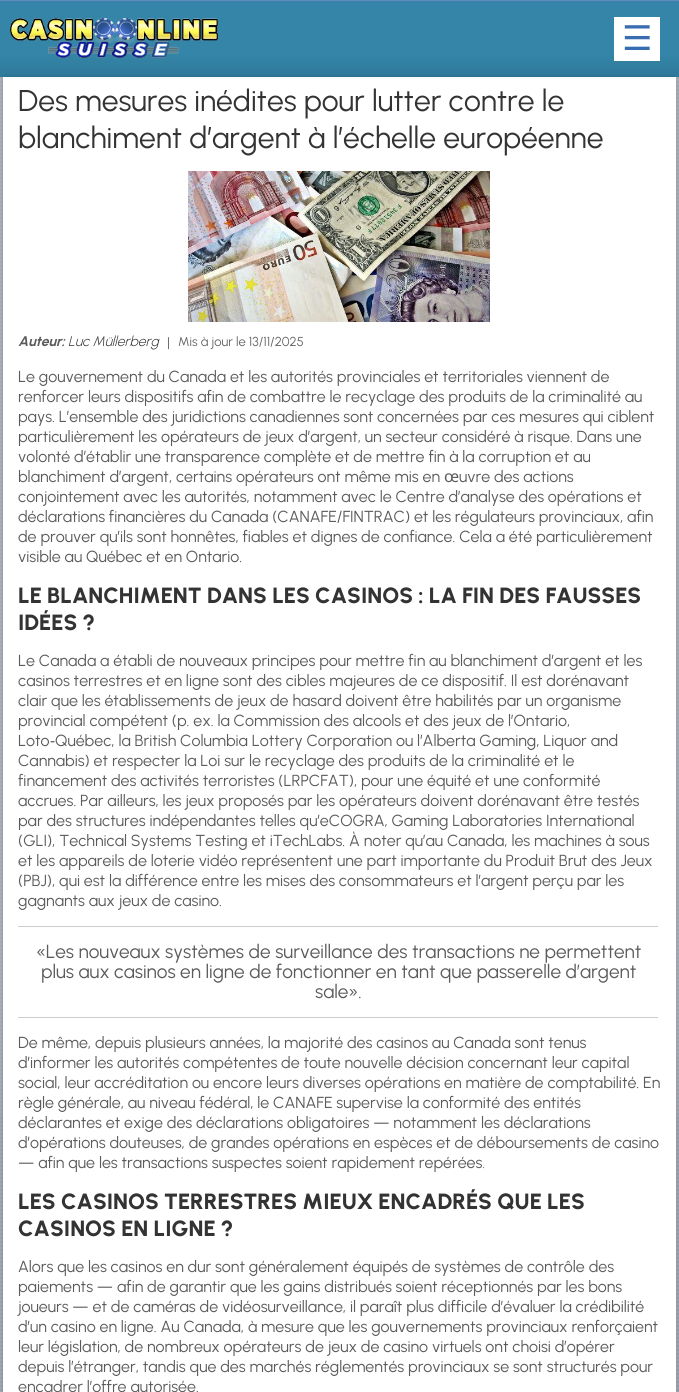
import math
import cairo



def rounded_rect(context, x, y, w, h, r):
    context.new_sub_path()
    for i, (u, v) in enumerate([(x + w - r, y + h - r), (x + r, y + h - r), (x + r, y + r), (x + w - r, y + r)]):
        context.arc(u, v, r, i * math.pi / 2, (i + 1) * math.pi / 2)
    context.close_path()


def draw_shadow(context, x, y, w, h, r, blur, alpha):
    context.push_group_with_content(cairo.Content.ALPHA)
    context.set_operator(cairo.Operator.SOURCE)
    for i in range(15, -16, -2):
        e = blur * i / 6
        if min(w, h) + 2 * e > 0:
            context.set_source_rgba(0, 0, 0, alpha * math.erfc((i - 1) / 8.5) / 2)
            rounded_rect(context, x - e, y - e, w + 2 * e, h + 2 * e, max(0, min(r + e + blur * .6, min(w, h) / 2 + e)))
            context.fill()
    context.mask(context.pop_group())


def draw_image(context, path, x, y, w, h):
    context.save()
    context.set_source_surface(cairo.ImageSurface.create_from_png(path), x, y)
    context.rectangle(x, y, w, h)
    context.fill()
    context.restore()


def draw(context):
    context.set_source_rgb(162 / 255, 168 / 255, 183 / 255)
    context.paint()
    draw_image(context, "images/1.png", 1, 77, 678, 1314)
    draw_image(context, "images/2.png", 0, 77, 679, 1038)
    gradient = cairo.LinearGradient(340, 1, 340, 77)
    gradient.add_color_stop_rgba(0, 52 / 255, 133 / 255, 168 / 255, 1)
    gradient.add_color_stop_rgba(0.7, 52 / 255, 133 / 255, 168 / 255, 1)
    gradient.add_color_stop_rgba(1, 46 / 255, 121 / 255, 153 / 255, 1)
    context.set_source(gradient)
    context.rectangle(0, 1, 679, 76)
    context.fill()
    context.set_source_rgb(97 / 255, 137 / 255, 188 / 255)
    context.rectangle(0, 0, 679, 1)
    context.fill()
    draw_image(context, "images/3.png", 10, 18, 208, 40)
    context.set_source_rgb(1, 1, 1)
    context.rectangle(614, 17, 46, 44)
    context.fill()
    context.set_source_rgb(0, 0, 0)
    draw_shadow(context, 3, 77, 673, 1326, 5, 2, 0.2)
    context.set_source_rgb(1, 1, 1)
    context.rectangle(3, 77, 673, 1315)
    context.fill()
    draw_image(context, "images/4.png", 188, 171, 302, 151)
    context.set_source_rgb(204 / 255, 204 / 255, 204 / 255)
    context.rectangle(18, 926, 640, 1)
    context.fill()
    context.rectangle(18, 1017, 640, 1)
    context.fill()
    context.select_font_face("DejaVu Sans")
    context.set_font_size(34)
    context.set_source_rgb(56 / 255, 109 / 255, 177 / 255)
    context.move_to(622, 50)
    context.show_text("☰")
    context.select_font_face("Urbanist")
    context.set_font_size(30)
    context.set_source_rgb(51 / 255, 51 / 255, 51 / 255)
    context.move_to(18, 111)
    context.show_text("Des mesures inédites pour lutter contre le")
    context.move_to(18, 148)
    context.show_text("blanchiment d’argent à l’échelle européenne")
    context.select_font_face("Urbanist", cairo.FontSlant.ITALIC, cairo.FontWeight.BOLD)
    context.set_font_size(14)
    context.set_source_rgb(91 / 255, 91 / 255, 91 / 255)
    context.move_to(18, 346)
    context.show_text("Auteur:")
    context.select_font_face("Urbanist Light", cairo.FontSlant.ITALIC)
    context.set_source_rgb(51 / 255, 51 / 255, 51 / 255)
    context.move_to(68, 346)
    context.show_text("Luc Müllerberg")
    context.select_font_face("Urbanist")
    context.set_source_rgb(102 / 255, 102 / 255, 102 / 255)
    context.move_to(167, 347)
    context.show_text("|")
    context.set_font_size(13)
    context.move_to(178, 346)
    context.show_text("Mis à jour le 13/11/2025")
    context.set_font_size(16)
    context.set_source_rgb(91 / 255, 91 / 255, 91 / 255)
    context.move_to(18, 382)
    context.show_text("Le gouvernement du Canada et les autorités provinciales et territoriales viennent de")
    context.move_to(18, 402)
    context.show_text("renforcer leurs dispositifs afin de combattre le recyclage des produits de la criminalité au")
    context.move_to(18, 422)
    context.show_text("pays. L’ensemble des juridictions canadiennes sont concernées par ces mesures qui ciblent")
    context.move_to(18, 442)
    context.show_text("particulièrement les opérateurs de jeux d’argent, un secteur considéré à risque. Dans une")
    context.move_to(18, 462)
    context.show_text("volonté d’établir une transparence complète et de mettre fin à la corruption et au")
    context.move_to(18, 482)
    context.show_text("blanchiment d’argent, certains opérateurs ont même mis en")
    context.select_font_face("Noto Sans")
    context.move_to(444, 482)
    context.show_text("œ")
    context.select_font_face("Urbanist")
    context.move_to(459, 482)
    context.show_text("uvre des actions")
    context.move_to(18, 502)
    context.show_text("conjointement avec les autorités, notamment avec le Centre d’analyse des opérations et")
    context.move_to(18, 522)
    context.show_text("déclarations financières du Canada (CANAFE/FINTRAC) et les régulateurs provinciaux, afin")
    context.move_to(18, 542)
    context.show_text("de prouver qu’ils sont honnêtes, fiables et dignes de confiance. Cela a été particulièrement")
    context.move_to(18, 562)
    context.show_text("visible au Québec et en Ontario.")
    context.select_font_face("Urbanist ExtraBold")
    context.set_font_size(22)
    context.set_source_rgb(51 / 255, 51 / 255, 51 / 255)
    context.move_to(18, 603)
    context.show_text("LE BLANCHIMENT DANS LES CASINOS : LA FIN DES FAUSSES")
    context.move_to(18, 630)
    context.show_text("IDÉES ?")
    context.select_font_face("Urbanist")
    context.set_font_size(16)
    context.set_source_rgb(91 / 255, 91 / 255, 91 / 255)
    context.move_to(18, 666)
    context.show_text("Le Canada a établi de nouveaux principes pour mettre fin au blanchiment d’argent et les")
    context.move_to(18, 686)
    context.show_text("casinos terrestres et en ligne sont des cibles majeures de ce dispositif. Il est dorénavant")
    context.move_to(18, 706)
    context.show_text("clair que les établissements de jeux de hasard doivent être habilités par un organisme")
    context.move_to(18, 726)
    context.show_text("provincial compétent (p. ex. la Commission des alcools et des jeux de l’Ontario,")
    context.move_to(18, 746)
    context.show_text("Loto")
    context.select_font_face("Noto Sans")
    context.move_to(50, 746)
    context.show_text("‑")
    context.select_font_face("Urbanist")
    context.move_to(55, 746)
    context.show_text("Québec, la British Columbia Lottery Corporation ou l’Alberta Gaming, Liquor and")
    context.move_to(18, 766)
    context.show_text("Cannabis) et respecter la Loi sur le recyclage des produits de la criminalité et le")
    context.move_to(18, 786)
    context.show_text("financement des activités terroristes (LRPCFAT), pour une équité et une conformité")
    context.move_to(18, 806)
    context.show_text("accrues. Par ailleurs, les jeux proposés par les opérateurs doivent dorénavant être testés")
    context.move_to(18, 826)
    context.show_text("par des structures indépendantes telles qu’eCOGRA, Gaming Laboratories International")
    context.move_to(18, 846)
    context.show_text("(GLI), Technical Systems Testing et iTechLabs. À noter qu’au Canada, les machines à sous")
    context.move_to(18, 866)
    context.show_text("et les appareils de loterie vidéo représentent une part importante du Produit Brut des Jeux")
    context.move_to(18, 886)
    context.show_text("(PBJ), qui est la différence entre les mises des consommateurs et l’argent perçu par les")
    context.move_to(18, 906)
    context.show_text("gagnants aux jeux de casino.")
    context.set_font_size(19)
    context.move_to(36, 958)
    context.show_text("«Les nouveaux systèmes de surveillance des transactions ne permettent")
    context.move_to(41, 978)
    context.show_text("plus aux casinos en ligne de fonctionner en tant que passerelle d’argent")
    context.move_to(315, 998)
    context.show_text("sale».")
    context.set_font_size(16)
    context.move_to(18, 1048)
    context.show_text("De même, depuis plusieurs années, la majorité des casinos au Canada sont tenus")
    context.move_to(18, 1068)
    context.show_text("d’informer les autorités compétentes de toute nouvelle décision concernant leur capital")
    context.move_to(18, 1088)
    context.show_text("social, leur accréditation ou encore leurs diverses opérations en matière de comptabilité. En")
    context.move_to(18, 1108)
    context.show_text("règle générale, au niveau fédéral, le CANAFE supervise la conformité des entités")
    context.move_to(18, 1128)
    context.show_text("déclarantes et exige des déclarations obligatoires — notamment les déclarations")
    context.move_to(18, 1148)
    context.show_text("d’opérations douteuses, de grandes opérations en espèces et de déboursements de casino")
    context.move_to(18, 1168)
    context.show_text("— afin que les transactions suspectes soient rapidement repérées.")
    context.select_font_face("Urbanist ExtraBold")
    context.set_font_size(22)
    context.set_source_rgb(51 / 255, 51 / 255, 51 / 255)
    context.move_to(18, 1209)
    context.show_text("LES CASINOS TERRESTRES MIEUX ENCADRÉS QUE LES")
    context.move_to(18, 1236)
    context.show_text("CASINOS EN LIGNE ?")
    context.select_font_face("Urbanist")
    context.set_font_size(16)
    context.set_source_rgb(91 / 255, 91 / 255, 91 / 255)
    context.move_to(18, 1272)
    context.show_text("Alors que les casinos en dur sont généralement équipés de systèmes de contrôle des")
    context.move_to(18, 1292)
    context.show_text("paiements — afin de garantir que les gains distribués soient réceptionnés par les bons")
    context.move_to(18, 1312)
    context.show_text("joueurs — et de caméras de vidéosurveillance, il paraît plus difficile d’évaluer la crédibilité")
    context.move_to(18, 1332)
    context.show_text("d’un casino en ligne. Au Canada, à mesure que les gouvernements provinciaux renforçaient")
    context.move_to(18, 1352)
    context.show_text("leur législation, de nombreux opérateurs de jeux de casino virtuels ont choisi d’opérer")
    context.move_to(18, 1372)
    context.show_text("depuis l’étranger, tandis que des marchés réglementés provinciaux se sont structurés pour")
    context.move_to(18, 1392)
    context.show_text("encadrer l’offre autorisée.")


surface = cairo.ImageSurface(cairo.Format.RGB24, 679, 1392)
context = cairo.Context(surface)
options = cairo.FontOptions()
options.set_hint_metrics(cairo.HintMetrics.OFF)
options.set_hint_style(cairo.HintStyle.NONE)
context.set_font_options(options)
context.set_miter_limit(4)
draw(context)
surface.write_to_png("out.png")
